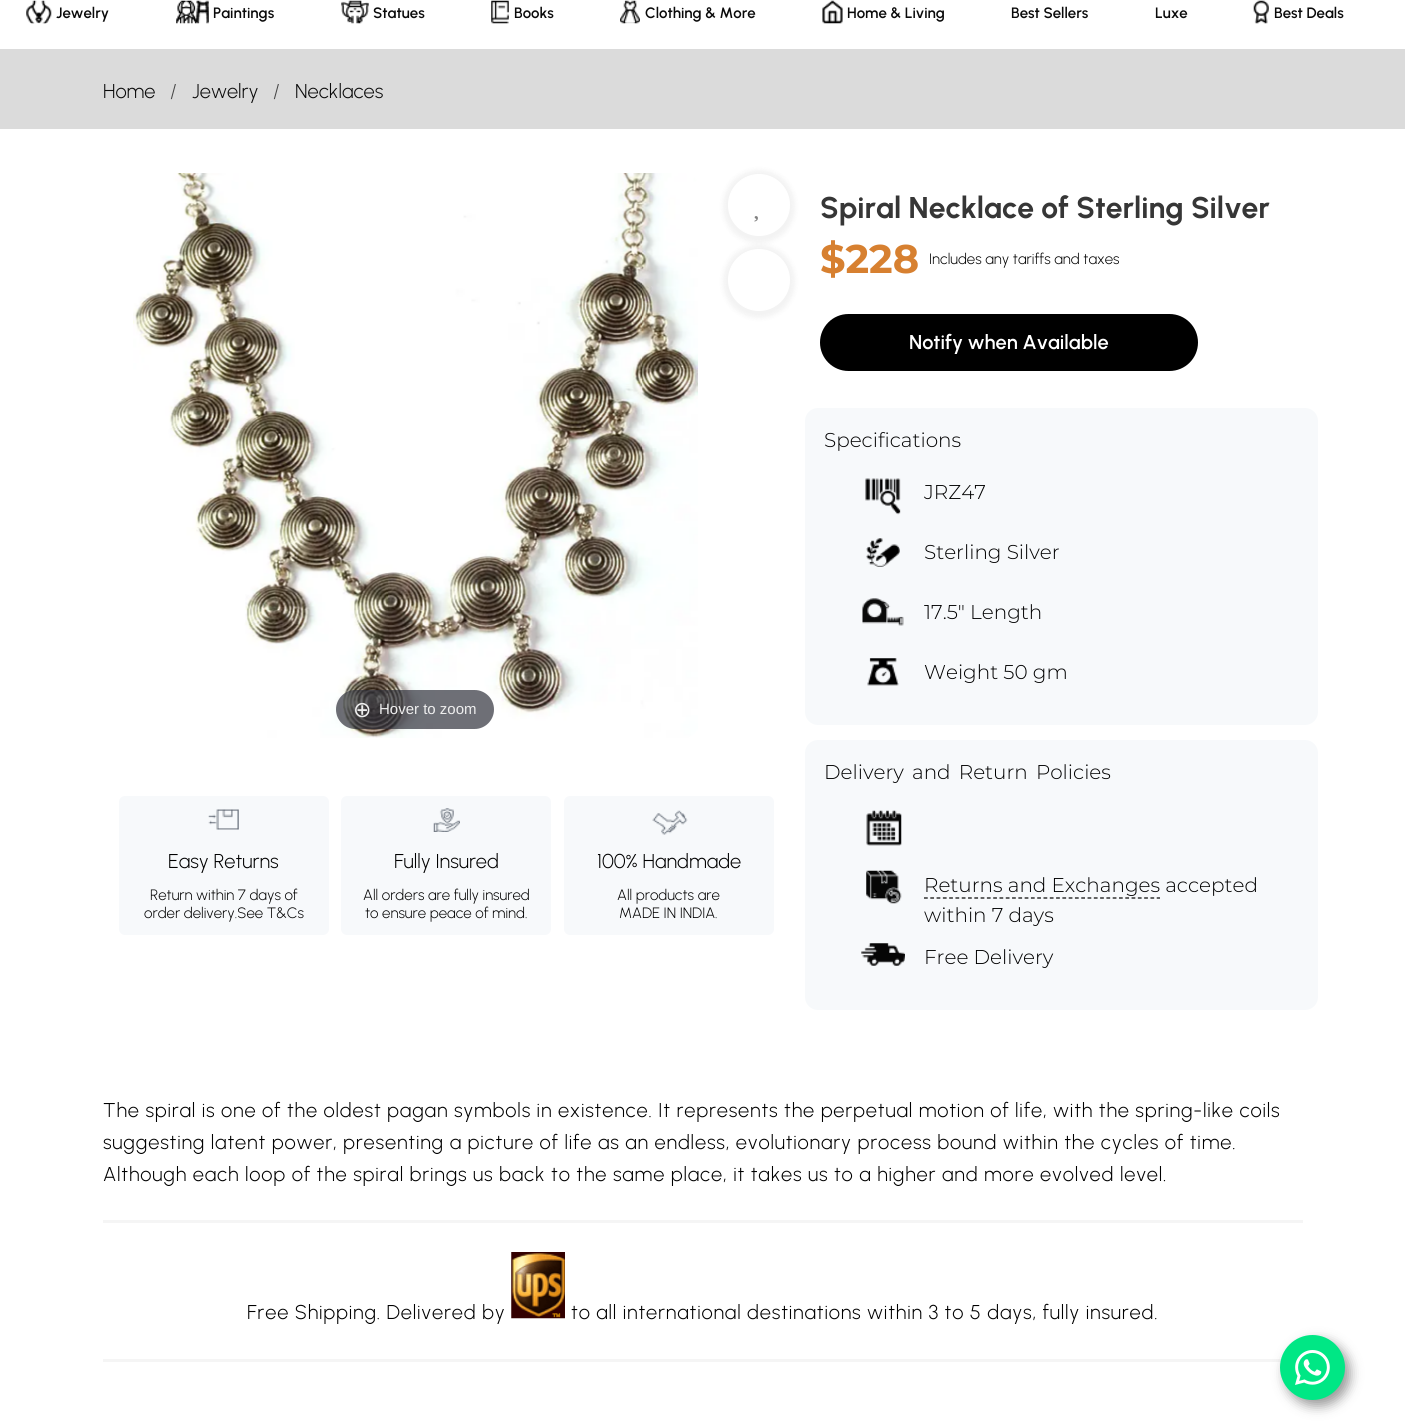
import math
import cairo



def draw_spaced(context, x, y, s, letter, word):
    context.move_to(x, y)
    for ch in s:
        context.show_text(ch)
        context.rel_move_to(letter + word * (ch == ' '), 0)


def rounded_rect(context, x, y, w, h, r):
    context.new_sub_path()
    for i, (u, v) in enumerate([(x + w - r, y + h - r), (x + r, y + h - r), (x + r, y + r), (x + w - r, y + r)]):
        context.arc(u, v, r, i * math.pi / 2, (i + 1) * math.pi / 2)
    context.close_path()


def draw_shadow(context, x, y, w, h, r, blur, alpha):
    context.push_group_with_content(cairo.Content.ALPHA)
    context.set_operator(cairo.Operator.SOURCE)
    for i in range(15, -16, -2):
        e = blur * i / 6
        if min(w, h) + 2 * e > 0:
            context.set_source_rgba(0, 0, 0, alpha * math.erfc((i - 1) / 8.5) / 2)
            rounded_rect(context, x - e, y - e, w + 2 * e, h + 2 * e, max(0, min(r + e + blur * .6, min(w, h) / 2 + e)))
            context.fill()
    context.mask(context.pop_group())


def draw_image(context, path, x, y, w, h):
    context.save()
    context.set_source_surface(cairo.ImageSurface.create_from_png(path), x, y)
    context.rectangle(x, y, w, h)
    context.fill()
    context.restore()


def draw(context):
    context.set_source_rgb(1, 1, 1)
    context.paint()
    draw_image(context, "images/1.png", 26, 0, 26, 24)
    draw_image(context, "images/2.png", 176, 0, 33, 24)
    draw_image(context, "images/3.png", 341, 0, 28, 24)
    draw_image(context, "images/4.png", 491, 0, 18, 24)
    draw_image(context, "images/5.png", 620, 0, 20, 24)
    draw_image(context, "images/6.png", 822, 0, 21, 24)
    draw_image(context, "images/7.png", 1253, 0, 16, 24)
    context.set_source_rgb(219 / 255, 219 / 255, 219 / 255)
    context.rectangle(0, 49, 1405, 80)
    context.fill()
    context.set_source_rgb(0, 0, 0)
    draw_shadow(context, 723, 170, 72, 73, 36, 2.5, 0.05)
    context.set_source_rgb(1, 1, 1)
    context.arc(759, 205, 30.5, 0, 2 * math.pi)
    context.fill_preserve()
    context.set_line_width(1)
    context.stroke()
    draw_image(context, "images/8.png", 754, 216, 4, 6)
    context.set_source_rgb(0, 0, 0)
    draw_shadow(context, 723, 245, 72, 73, 36, 2.5, 0.05)
    context.set_source_rgb(1, 1, 1)
    context.arc(759, 280, 30.5, 0, 2 * math.pi)
    context.fill_preserve()
    context.stroke()
    draw_image(context, "images/9.png", 133, 173, 565, 565)
    context.set_source_rgba(49 / 255, 51 / 255, 61 / 255, 0.7)
    rounded_rect(context, 336, 690, 158, 39, 19.5)
    context.fill()
    context.set_source_rgb(247 / 255, 249 / 255, 251 / 255)
    rounded_rect(context, 119, 796, 210, 139, 6)
    context.fill()
    draw_image(context, "images/10.png", 208, 809, 31, 21)
    rounded_rect(context, 341, 796, 210, 139, 6)
    context.fill()
    draw_image(context, "images/11.png", 433, 808, 27, 24)
    rounded_rect(context, 564, 796, 210, 139, 6)
    context.fill()
    draw_image(context, "images/12.png", 652, 810, 36, 25)
    context.set_source_rgb(0, 0, 0)
    rounded_rect(context, 820, 314, 378, 57, 28.5)
    context.fill()
    context.set_source_rgb(247 / 255, 249 / 255, 251 / 255)
    rounded_rect(context, 805, 408, 513, 317, 13)
    context.fill()
    draw_image(context, "images/13.png", 865, 478, 36, 37)
    draw_image(context, "images/14.png", 866, 538, 34, 29)
    draw_image(context, "images/15.png", 862, 598, 42, 28)
    draw_image(context, "images/16.png", 867, 658, 32, 28)
    rounded_rect(context, 805, 740, 513, 270, 13)
    context.fill()
    draw_image(context, "images/17.png", 866, 810, 36, 36)
    draw_image(context, "images/18.png", 866, 870, 36, 34)
    context.new_path()
    context.move_to(924, 898)
    context.line_to(1160, 898)
    context.set_source_rgb(0, 0, 0)
    context.set_line_width(1.2)
    context.set_dash([3.75, 2.54])
    context.stroke()
    draw_image(context, "images/19.png", 861, 943, 44, 23)
    context.set_source_rgb(245 / 255, 245 / 255, 245 / 255)
    context.rectangle(103, 1220, 1200, 3)
    context.fill()
    draw_image(context, "images/20.png", 511, 1252, 54, 67)
    context.rectangle(103, 1359, 1179, 3)
    context.fill()
    context.set_source_rgb(0, 0, 0)
    draw_shadow(context, 1285, 1341, 65, 65, 32.5, 6, 0.4)
    context.set_source_rgb(0, 231 / 255, 133 / 255)
    context.arc(1312.5, 1367.5, 32.5, 0, 2 * math.pi)
    context.fill()
    draw_image(context, "images/21.png", 1295, 1350, 35, 35)
    context.select_font_face("Urbanist SemiBold")
    context.set_font_size(15)
    context.set_source_rgb(10 / 255, 10 / 255, 10 / 255)
    context.move_to(56, 18)
    context.show_text("Jewelry")
    context.move_to(213, 18)
    context.show_text("Paintings")
    context.move_to(373, 18)
    context.show_text("Statues")
    context.move_to(514, 18)
    context.show_text("Books")
    context.move_to(645, 18)
    context.show_text("Clothing & More")
    context.move_to(847, 18)
    context.show_text("Home & Living")
    context.move_to(1011, 18)
    context.show_text("Best Sellers")
    context.move_to(1155, 18)
    context.show_text("Luxe")
    context.move_to(1274, 18)
    context.show_text("Best Deals")
    context.select_font_face("Urbanist Light")
    context.set_font_size(20)
    context.move_to(103, 98)
    context.show_text("Home")
    context.set_source_rgb(71 / 255, 71 / 255, 71 / 255)
    context.move_to(170, 98)
    context.show_text("/")
    context.set_source_rgb(10 / 255, 10 / 255, 10 / 255)
    context.move_to(192, 98)
    context.show_text("Jewelry")
    context.set_source_rgb(71 / 255, 71 / 255, 71 / 255)
    context.move_to(273, 98)
    context.show_text("/")
    context.set_source_rgb(10 / 255, 10 / 255, 10 / 255)
    context.move_to(295, 98)
    context.show_text("Necklaces")
    context.select_font_face("DejaVu Sans")
    context.set_font_size(22)
    context.set_source_rgb(238 / 255, 238 / 255, 238 / 255)
    context.move_to(353, 717)
    context.show_text("⊕")
    context.select_font_face("Liberation Sans")
    context.set_font_size(15)
    context.move_to(379, 714)
    context.show_text("Hover to zoom")
    context.select_font_face("Urbanist Light")
    context.set_font_size(20)
    context.set_source_rgb(0, 0, 0)
    context.move_to(168, 868)
    context.show_text("Easy Returns")
    context.set_font_size(15)
    context.move_to(150, 900)
    context.show_text("Return within 7 days of")
    context.move_to(144, 918)
    context.show_text("order delivery.See T&Cs")
    context.set_font_size(20)
    context.move_to(394, 868)
    context.show_text("Fully Insured")
    context.set_font_size(15)
    context.move_to(363, 900)
    context.show_text("All orders are fully insured")
    context.move_to(365, 918)
    context.show_text("to ensure peace of mind.")
    context.set_font_size(20)
    context.move_to(597, 868)
    context.show_text("100% Handmade")
    context.set_font_size(15)
    context.move_to(617, 900)
    context.show_text("All products are")
    context.move_to(619, 918)
    context.show_text("MADE IN INDIA.")
    context.select_font_face("Urbanist", cairo.FontSlant.NORMAL, cairo.FontWeight.BOLD)
    context.set_font_size(30)
    context.set_source_rgb(54 / 255, 54 / 255, 54 / 255)
    context.move_to(820, 218)
    context.show_text("Spiral Necklace of Sterling Silver")
    context.select_font_face("Montserrat", cairo.FontSlant.NORMAL, cairo.FontWeight.BOLD)
    context.set_font_size(40)
    context.set_source_rgb(215 / 255, 128 / 255, 48 / 255)
    context.move_to(820, 273)
    context.show_text("$228")
    context.select_font_face("Urbanist Light")
    context.set_font_size(15)
    context.set_source_rgb(0, 0, 0)
    context.move_to(929, 264)
    context.show_text("Includes any tariffs and taxes")
    context.select_font_face("Urbanist SemiBold")
    context.set_font_size(20)
    context.set_source_rgb(1, 1, 1)
    context.move_to(909, 349)
    context.show_text("Notify when Available")
    context.select_font_face("Montserrat Light")
    context.set_source_rgb(0, 0, 0)
    context.move_to(824, 447)
    context.show_text("Specifications")
    context.move_to(924, 499)
    context.show_text("JRZ47")
    context.move_to(924, 559)
    context.show_text("Sterling Silver")
    context.move_to(924, 619)
    context.show_text("17.5\" Length")
    context.move_to(924, 679)
    context.show_text("Weight 50 gm")
    draw_spaced(context, 824, 779, "Delivery and Return Policies", 0, 3)
    context.move_to(924, 892)
    context.show_text("Returns and Exchanges accepted")
    context.move_to(924, 922)
    context.show_text("within 7 days")
    context.move_to(924, 964)
    context.show_text("Free Delivery")
    context.select_font_face("Urbanist Light")
    draw_spaced(context, 103, 1117, "The spiral is one of the oldest pagan symbols in existence. It represents the perpetual motion of life, with the spring-like coils", 0.81, 0)
    draw_spaced(context, 103, 1149, "suggesting latent power, presenting a picture of life as an endless, evolutionary process bound within the cycles of time.", 0.81, 0)
    draw_spaced(context, 103, 1181, "Although each loop of the spiral brings us back to the same place, it takes us to a higher and more evolved level.", 0.81, 0)
    draw_spaced(context, 247, 1319, "Free Shipping. Delivered by", 0.81, 0)
    draw_spaced(context, 571, 1319, "to all international destinations within 3 to 5 days, fully insured.", 0.81, 0)


surface = cairo.ImageSurface(cairo.Format.RGB24, 1405, 1425)
context = cairo.Context(surface)
options = cairo.FontOptions()
options.set_hint_metrics(cairo.HintMetrics.OFF)
options.set_hint_style(cairo.HintStyle.NONE)
context.set_font_options(options)
context.set_miter_limit(4)
draw(context)
surface.write_to_png("out.png")
